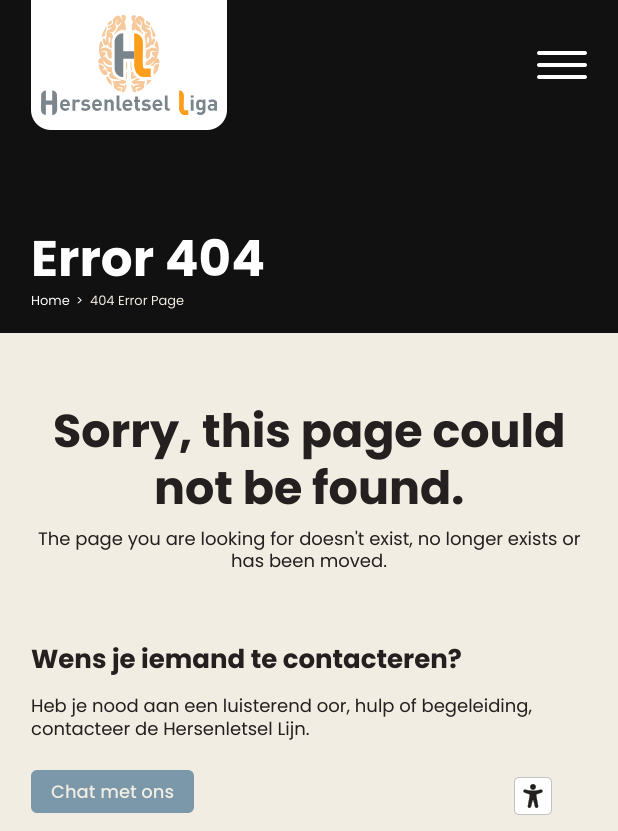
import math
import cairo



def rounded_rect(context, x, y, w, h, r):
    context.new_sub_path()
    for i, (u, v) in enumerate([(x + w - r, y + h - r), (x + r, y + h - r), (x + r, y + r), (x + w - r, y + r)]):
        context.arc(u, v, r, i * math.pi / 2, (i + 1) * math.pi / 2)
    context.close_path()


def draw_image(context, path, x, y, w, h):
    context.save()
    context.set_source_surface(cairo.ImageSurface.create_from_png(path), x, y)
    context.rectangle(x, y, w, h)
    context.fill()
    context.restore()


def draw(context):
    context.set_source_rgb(242 / 255, 237 / 255, 226 / 255)
    context.paint()
    context.set_source_rgb(17 / 255, 17 / 255, 17 / 255)
    context.rectangle(0, 0, 618, 333)
    context.fill()
    context.set_source_rgb(1, 1, 1)
    context.new_path()
    context.move_to(31, 0)
    context.line_to(227, 0)
    context.line_to(227, 110)
    context.curve_to(227, 121, 218, 130, 207, 130)
    context.line_to(51, 130)
    context.curve_to(40, 130, 31, 121, 31, 110)
    context.close_path()
    context.fill()
    draw_image(context, "images/1.png", 41, 15, 176, 100)
    rounded_rect(context, 537, 63, 50, 4, 2)
    context.fill()
    rounded_rect(context, 537, 51, 50, 4, 2)
    context.fill()
    rounded_rect(context, 537, 75, 50, 4, 2)
    context.fill()
    context.set_source_rgb(123 / 255, 152 / 255, 171 / 255)
    rounded_rect(context, 31, 770, 163, 43, 6)
    context.fill()
    context.set_source_rgb(1, 1, 1)
    rounded_rect(context, 514, 777, 38, 38, 5)
    context.fill()
    draw_image(context, "images/2.png", 523, 784, 20, 24)
    rounded_rect(context, 514.5, 777.5, 37, 37, 4.5)
    context.set_source_rgba(0, 0, 0, 0.24)
    context.set_line_width(1)
    context.stroke()
    context.select_font_face("Poppins", cairo.FontSlant.NORMAL, cairo.FontWeight.BOLD)
    context.set_font_size(50)
    context.set_source_rgb(1, 1, 1)
    context.move_to(31, 276)
    context.show_text("Error 404")
    context.select_font_face("Poppins")
    context.set_font_size(13)
    context.move_to(31, 305)
    context.show_text("Home")
    context.move_to(76, 305)
    context.show_text(">")
    context.set_source_rgb(242 / 255, 237 / 255, 226 / 255)
    context.move_to(90, 305)
    context.show_text("404 Error Page")
    context.select_font_face("Poppins", cairo.FontSlant.NORMAL, cairo.FontWeight.BOLD)
    context.set_font_size(46)
    context.set_source_rgb(37 / 255, 32 / 255, 32 / 255)
    context.move_to(53, 447)
    context.show_text("Sorry, this page could")
    context.move_to(154, 504)
    context.show_text("not be found.")
    context.select_font_face("Poppins")
    context.set_font_size(18)
    context.move_to(38, 545)
    context.show_text("The page you are looking for doesn't exist, no longer exists or")
    context.move_to(231, 567)
    context.show_text("has been moved.")
    context.select_font_face("Poppins", cairo.FontSlant.NORMAL, cairo.FontWeight.BOLD)
    context.set_font_size(26)
    context.move_to(31, 668)
    context.show_text("Wens je iemand te contacteren?")
    context.select_font_face("Poppins")
    context.set_font_size(18)
    context.move_to(31, 712)
    context.show_text("Heb je nood aan een luisterend oor, hulp of begeleiding,")
    context.move_to(31, 735)
    context.show_text("contacteer de Hersenletsel Lijn.")
    context.select_font_face("Poppins Medium")
    context.set_source_rgb(242 / 255, 237 / 255, 226 / 255)
    context.move_to(51, 798)
    context.show_text("Chat met ons")


surface = cairo.ImageSurface(cairo.Format.RGB24, 618, 831)
context = cairo.Context(surface)
options = cairo.FontOptions()
options.set_hint_metrics(cairo.HintMetrics.OFF)
options.set_hint_style(cairo.HintStyle.NONE)
context.set_font_options(options)
context.set_miter_limit(4)
draw(context)
surface.write_to_png("out.png")
